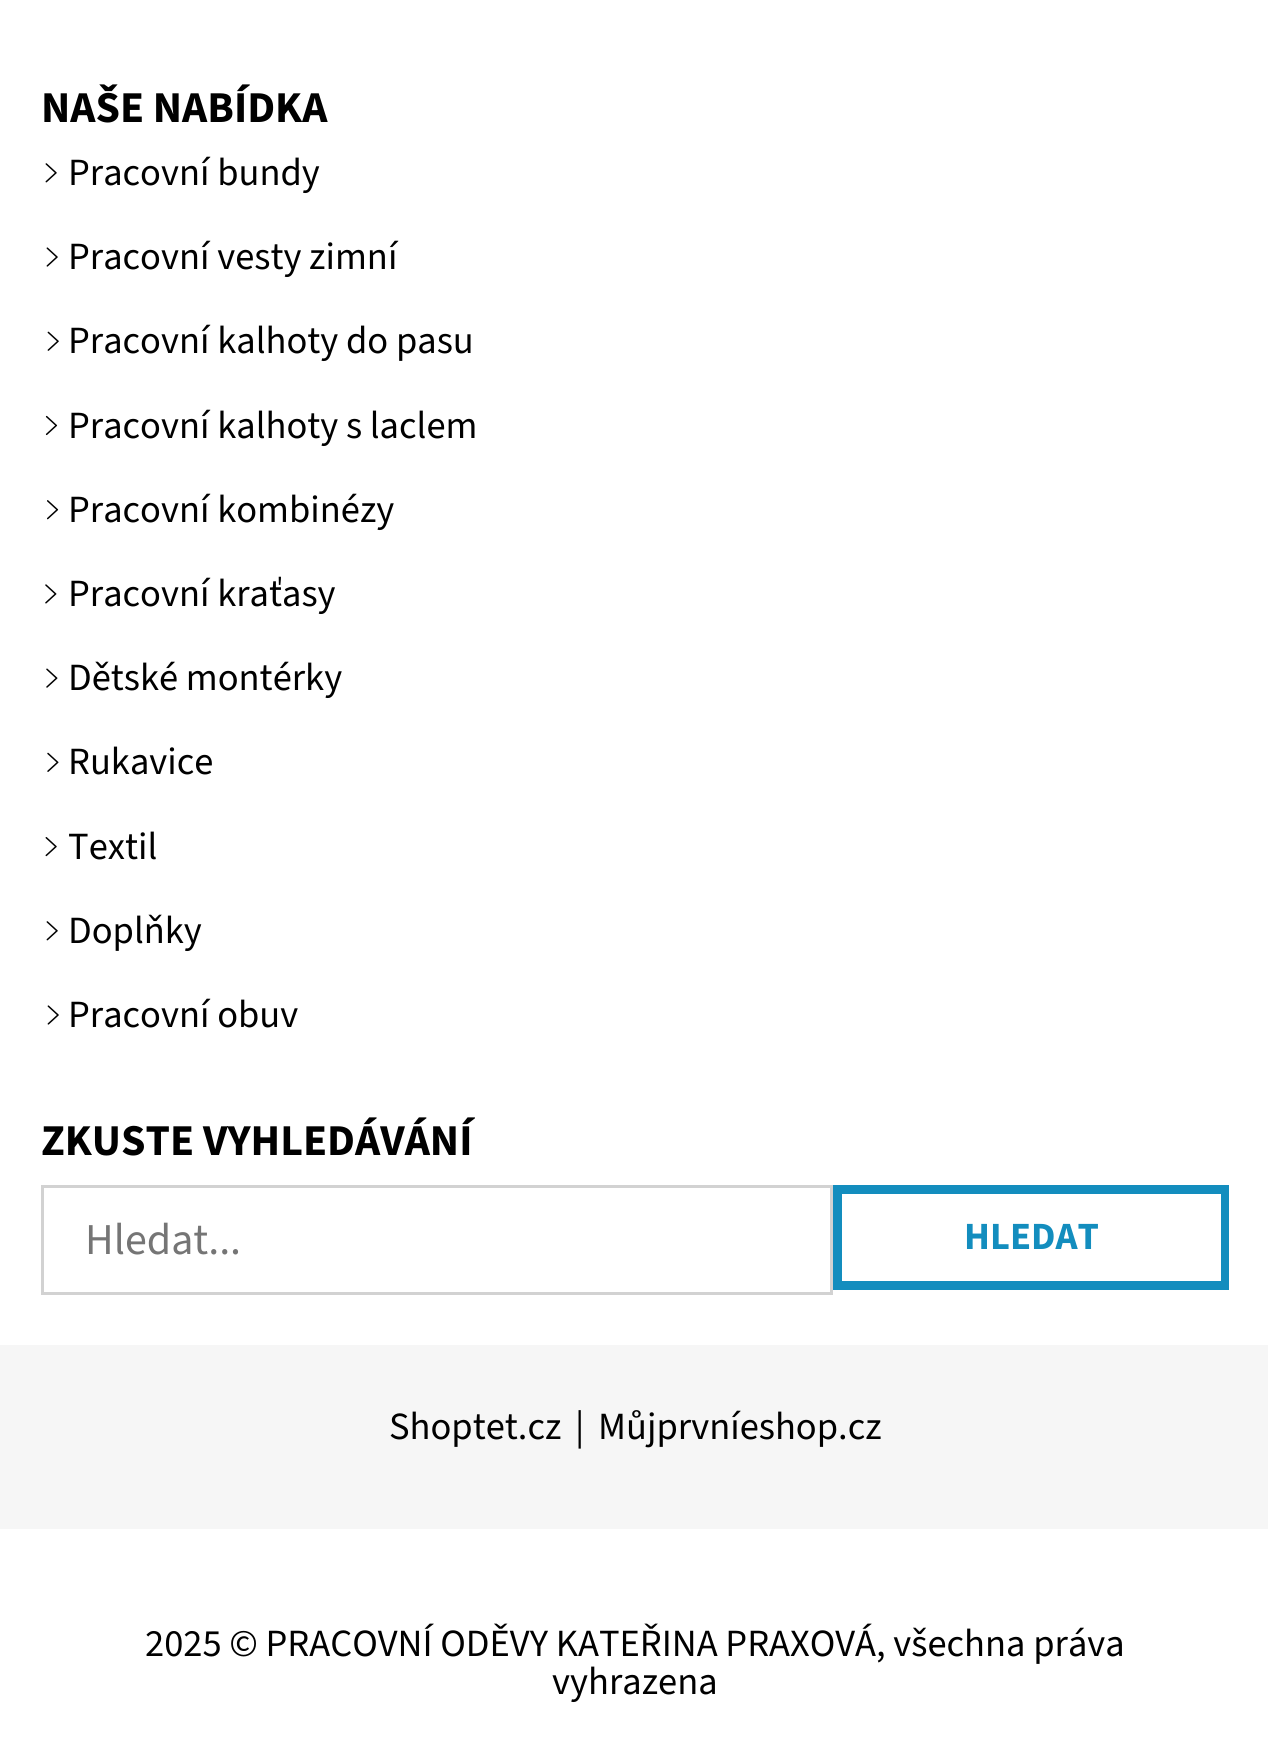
import math
import cairo



def draw_image(context, path, x, y, w, h):
    context.save()
    context.set_source_surface(cairo.ImageSurface.create_from_png(path), x, y)
    context.rectangle(x, y, w, h)
    context.fill()
    context.restore()


def draw(context):
    context.set_source_rgb(1, 1, 1)
    context.paint()
    draw_image(context, "images/1.png", 45, 163, 12, 20)
    draw_image(context, "images/2.png", 46, 247, 12, 20)
    draw_image(context, "images/3.png", 47, 331, 12, 20)
    draw_image(context, "images/4.png", 45, 415, 13, 21)
    draw_image(context, "images/5.png", 47, 500, 12, 20)
    draw_image(context, "images/6.png", 45, 584, 12, 20)
    draw_image(context, "images/7.png", 46, 668, 12, 20)
    draw_image(context, "images/8.png", 47, 752, 12, 20)
    draw_image(context, "images/9.png", 45, 837, 12, 20)
    draw_image(context, "images/10.png", 46, 921, 12, 20)
    draw_image(context, "images/11.png", 47, 1005, 12, 20)
    context.rectangle(42.5, 1186.5, 789, 107)
    context.set_source_rgb(210 / 255, 210 / 255, 210 / 255)
    context.set_line_width(3)
    context.stroke()
    context.rectangle(839, 1191, 385, 93)
    context.set_source_rgb(19 / 255, 141 / 255, 190 / 255)
    context.set_line_width(6)
    context.stroke()
    context.rectangle(834.5, 1186.5, 393, 102)
    context.set_line_width(3)
    context.stroke()
    context.set_source_rgb(246 / 255, 246 / 255, 246 / 255)
    context.rectangle(0, 1345, 1268, 184)
    context.fill()
    context.select_font_face("Source Sans 3", cairo.FontSlant.NORMAL, cairo.FontWeight.BOLD)
    context.set_font_size(44)
    context.set_source_rgb(0, 0, 0)
    context.move_to(41, 122)
    context.show_text("NAŠE NABÍDKA")
    context.select_font_face("Source Sans 3")
    context.set_font_size(38.5)
    context.move_to(68, 185)
    context.show_text("Pracovní bundy")
    context.move_to(68, 269)
    context.show_text("Pracovní vesty zimní")
    context.move_to(68, 353)
    context.show_text("Pracovní kalhoty do pasu")
    context.move_to(68, 438)
    context.show_text("Pracovní kalhoty s laclem")
    context.move_to(68, 522)
    context.show_text("Pracovní kombinézy")
    context.move_to(68, 606)
    context.show_text("Pracovní kraťasy")
    context.move_to(68, 690)
    context.show_text("Dětské montérky")
    context.move_to(68, 774)
    context.show_text("Rukavice")
    context.move_to(68, 859)
    context.show_text("Textil")
    context.move_to(68, 943)
    context.show_text("Doplňky")
    context.move_to(68, 1027)
    context.show_text("Pracovní obuv")
    context.select_font_face("Source Sans 3", cairo.FontSlant.NORMAL, cairo.FontWeight.BOLD)
    context.set_font_size(44)
    context.move_to(41, 1155)
    context.show_text("ZKUSTE VYHLEDÁVÁNÍ")
    context.select_font_face("Source Sans 3")
    context.set_source_rgb(117 / 255, 117 / 255, 117 / 255)
    context.move_to(85, 1254)
    context.show_text("Hledat...")
    context.select_font_face("Source Sans 3", cairo.FontSlant.NORMAL, cairo.FontWeight.BOLD)
    context.set_font_size(38.5)
    context.set_source_rgb(19 / 255, 141 / 255, 190 / 255)
    context.move_to(964, 1249)
    context.show_text("HLEDAT")
    context.select_font_face("Source Sans 3")
    context.set_source_rgb(0, 0, 0)
    context.move_to(389, 1439)
    context.show_text("Shoptet.cz")
    context.move_to(575, 1439)
    context.show_text("|")
    context.move_to(598, 1439)
    context.show_text("Můjprvníeshop.cz")
    context.move_to(145, 1656)
    context.show_text("2025 © PRACOVNÍ ODĚVY KATEŘINA PRAXOVÁ, všechna práva")
    context.move_to(552, 1694)
    context.show_text("vyhrazena")


surface = cairo.ImageSurface(cairo.Format.RGB24, 1268, 1740)
context = cairo.Context(surface)
options = cairo.FontOptions()
options.set_hint_metrics(cairo.HintMetrics.OFF)
options.set_hint_style(cairo.HintStyle.NONE)
context.set_font_options(options)
context.set_miter_limit(4)
draw(context)
surface.write_to_png("out.png")
